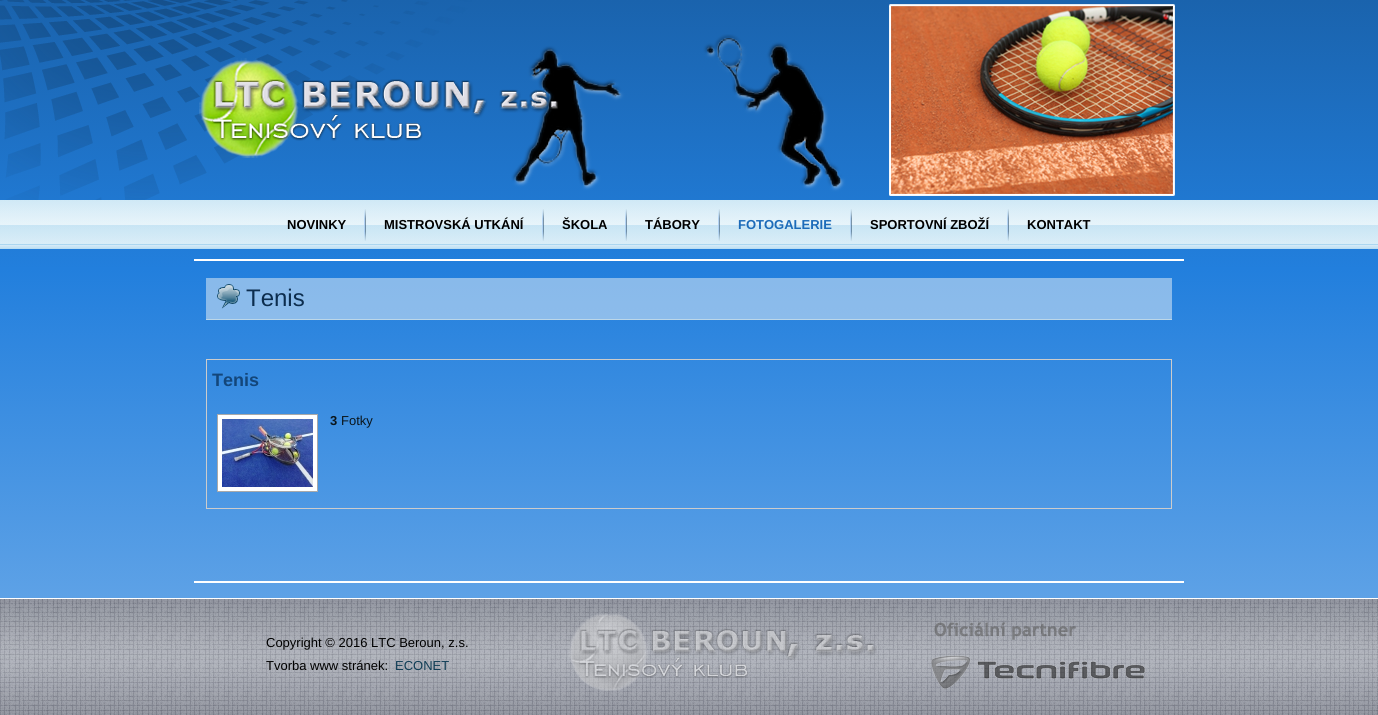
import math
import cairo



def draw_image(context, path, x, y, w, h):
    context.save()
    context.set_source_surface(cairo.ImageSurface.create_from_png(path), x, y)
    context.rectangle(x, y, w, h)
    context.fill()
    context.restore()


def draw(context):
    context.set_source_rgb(1, 1, 1)
    context.paint()
    draw_image(context, "images/1.png", 0, 0, 1378, 715)
    draw_image(context, "images/3.png", 511, 4, 664, 192)
    draw_image(context, "images/2.png", 199, 58, 359, 100)
    draw_image(context, "images/4.png", 0, 200, 1378, 49)
    draw_image(context, "images/5.png", 364, 209, 2, 32)
    draw_image(context, "images/6.png", 542, 209, 2, 32)
    draw_image(context, "images/7.png", 625, 209, 2, 32)
    draw_image(context, "images/6.png", 718, 209, 2, 32)
    draw_image(context, "images/8.png", 850, 209, 2, 32)
    draw_image(context, "images/7.png", 1007, 209, 2, 32)
    context.set_source_rgb(1, 1, 1)
    context.rectangle(194, 259, 990, 2)
    context.fill()
    context.rectangle(194, 581, 990, 2)
    context.fill()
    context.set_source_rgba(239 / 255, 245 / 255, 249 / 255, 0.5)
    context.rectangle(206, 278, 966, 41)
    context.fill()
    context.set_source_rgb(189 / 255, 215 / 255, 232 / 255)
    context.rectangle(206, 319, 966, 1)
    context.fill()
    draw_image(context, "images/9.png", 217, 284, 23, 25)
    context.rectangle(206.5, 359.5, 965, 149)
    context.set_source_rgb(204 / 255, 204 / 255, 204 / 255)
    context.set_line_width(1)
    context.stroke()
    context.set_source_rgb(1, 1, 1)
    context.rectangle(217.5, 414.5, 100, 77)
    context.fill_preserve()
    context.set_source_rgb(169 / 255, 169 / 255, 169 / 255)
    context.stroke()
    draw_image(context, "images/10.png", 222, 419, 91, 68)
    draw_image(context, "images/11.png", 0, 599, 1378, 116)
    context.set_source_rgb(1, 1, 1)
    context.rectangle(0, 598, 1378, 1)
    context.fill()
    draw_image(context, "images/12.png", 568, 613, 309, 79)
    draw_image(context, "images/13.png", 931, 622, 214, 67)
    context.select_font_face("Liberation Sans", cairo.FontSlant.NORMAL, cairo.FontWeight.BOLD)
    context.set_font_size(13)
    context.set_source_rgb(0, 0, 0)
    context.move_to(287, 229)
    context.show_text("NOVINKY")
    context.move_to(384, 229)
    context.show_text("MISTROVSKÁ UTKÁNÍ")
    context.move_to(562, 229)
    context.show_text("ŠKOLA")
    context.move_to(645, 229)
    context.show_text("TÁBORY")
    context.set_source_rgb(28 / 255, 107 / 255, 185 / 255)
    context.move_to(738, 229)
    context.show_text("FOTOGALERIE")
    context.set_source_rgb(0, 0, 0)
    context.move_to(870, 229)
    context.show_text("SPORTOVNÍ ZBOŽÍ")
    context.move_to(1027, 229)
    context.show_text("KONTAKT")
    context.select_font_face("Liberation Sans")
    context.set_font_size(24)
    context.set_source_rgb(12 / 255, 45 / 255, 78 / 255)
    context.move_to(246, 306)
    context.show_text("Tenis")
    context.select_font_face("Liberation Sans", cairo.FontSlant.NORMAL, cairo.FontWeight.BOLD)
    context.set_font_size(18)
    context.set_source_rgb(19 / 255, 70 / 255, 122 / 255)
    context.move_to(212, 386)
    context.show_text("Tenis")
    context.set_font_size(13)
    context.set_source_rgb(10 / 255, 22 / 255, 29 / 255)
    context.move_to(330, 425)
    context.show_text("3")
    context.select_font_face("Liberation Sans")
    context.move_to(341, 425)
    context.show_text("Fotky")
    context.set_source_rgb(0, 0, 0)
    context.move_to(266, 647)
    context.show_text("Copyright © 2016 LTC Beroun, z.s.")
    context.move_to(266, 670)
    context.show_text("Tvorba www stránek:")
    context.set_source_rgb(16 / 255, 61 / 255, 85 / 255)
    context.move_to(395, 670)
    context.show_text("ECONET")


surface = cairo.ImageSurface(cairo.Format.RGB24, 1378, 715)
context = cairo.Context(surface)
options = cairo.FontOptions()
options.set_hint_metrics(cairo.HintMetrics.OFF)
options.set_hint_style(cairo.HintStyle.NONE)
context.set_font_options(options)
context.set_miter_limit(4)
draw(context)
surface.write_to_png("out.png")
